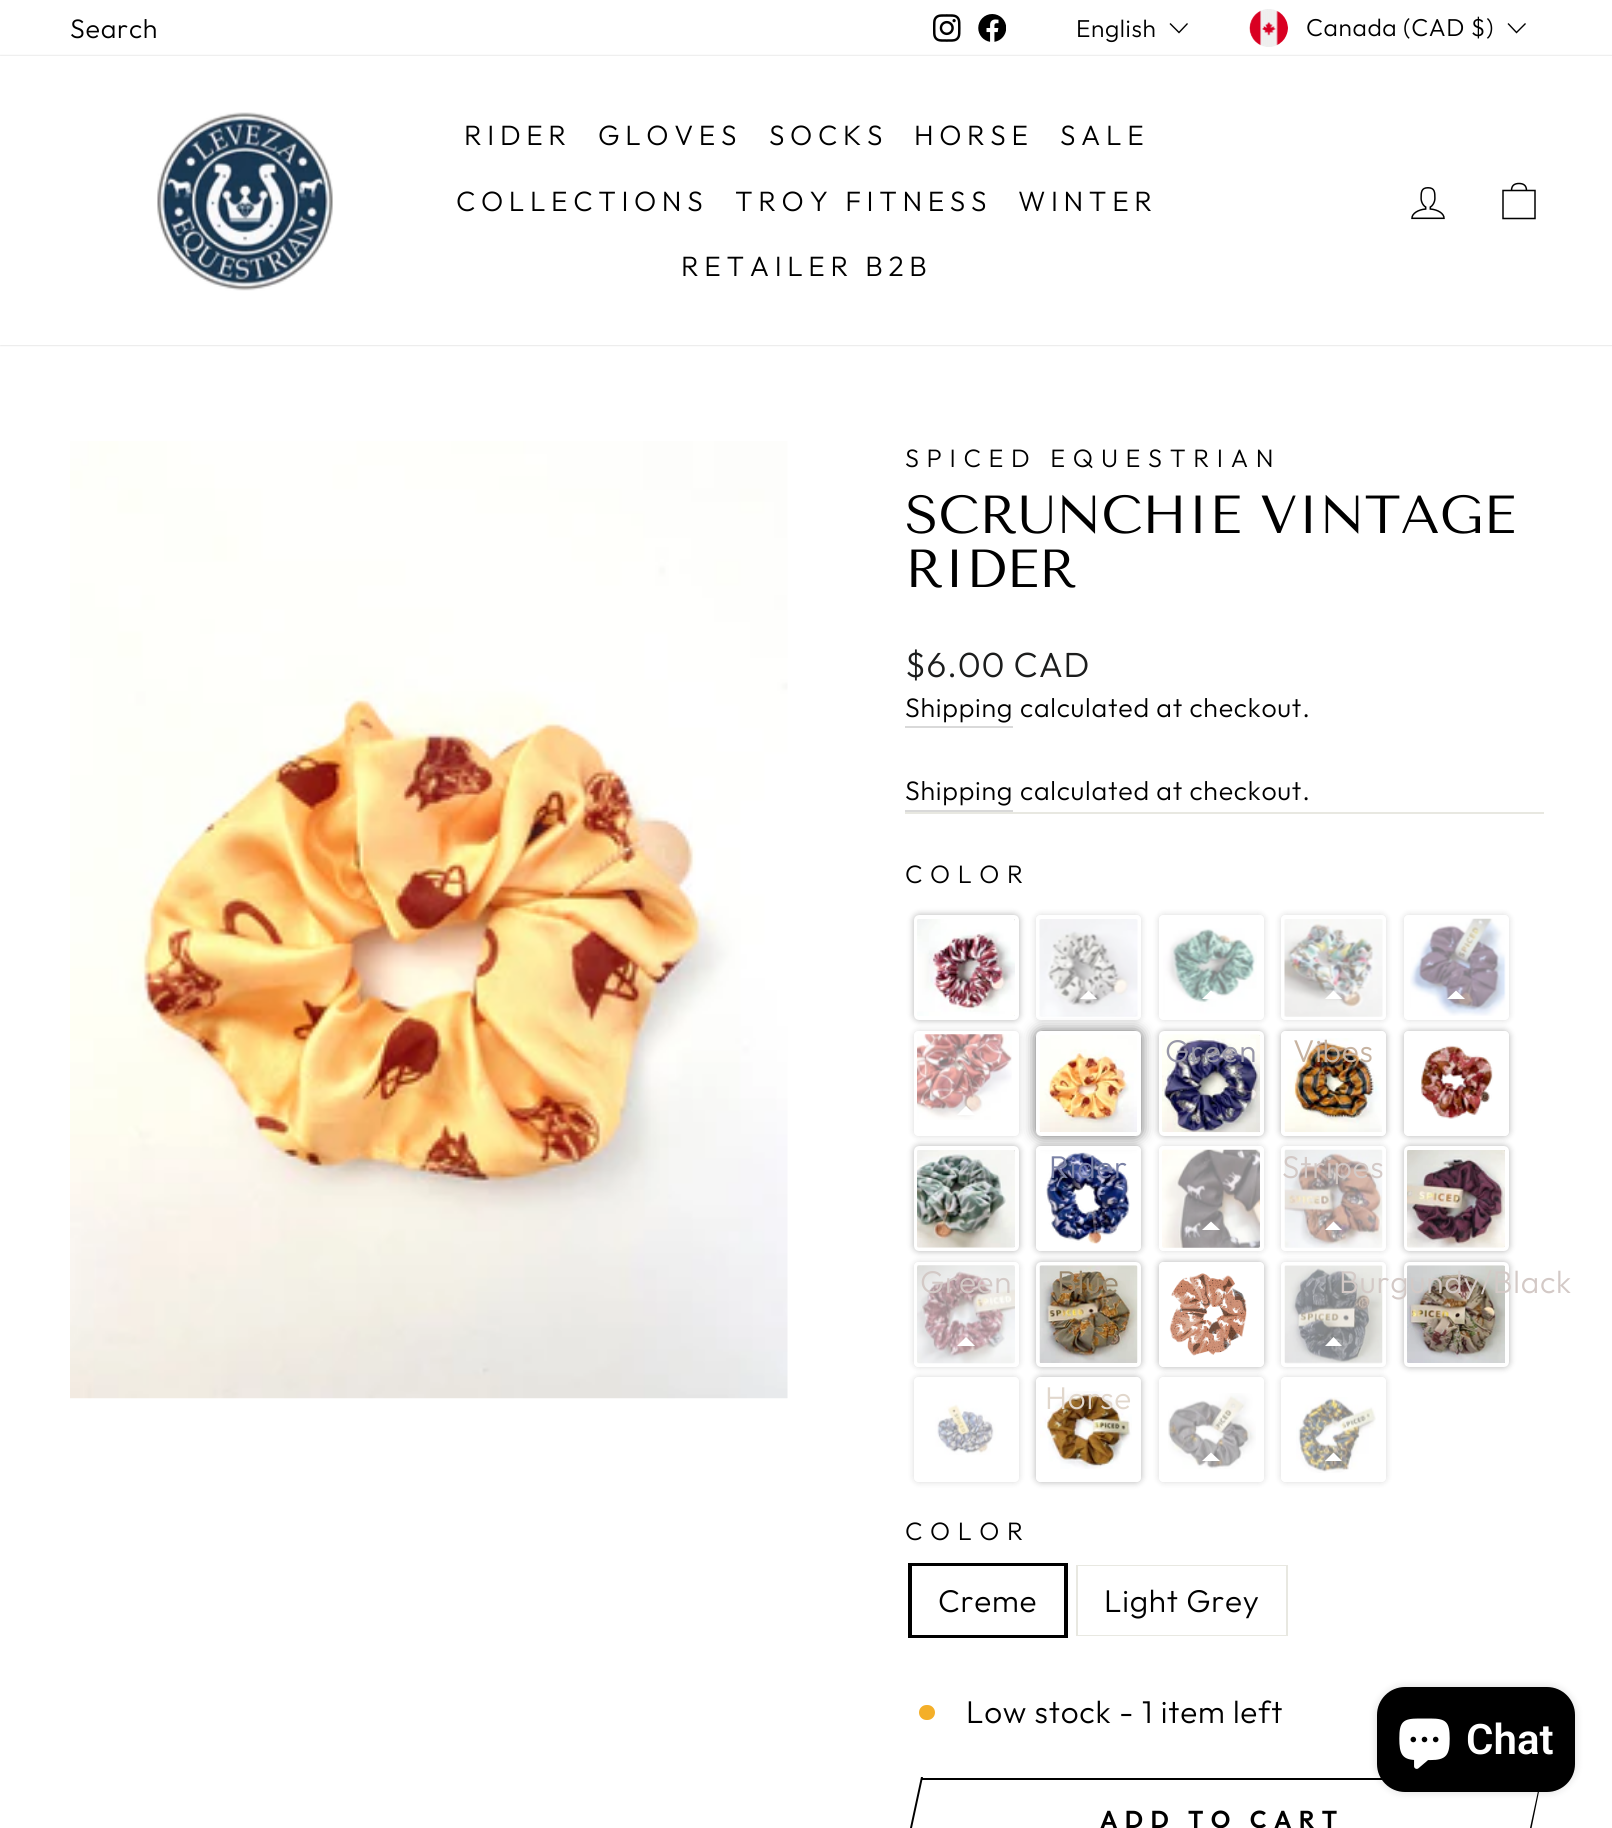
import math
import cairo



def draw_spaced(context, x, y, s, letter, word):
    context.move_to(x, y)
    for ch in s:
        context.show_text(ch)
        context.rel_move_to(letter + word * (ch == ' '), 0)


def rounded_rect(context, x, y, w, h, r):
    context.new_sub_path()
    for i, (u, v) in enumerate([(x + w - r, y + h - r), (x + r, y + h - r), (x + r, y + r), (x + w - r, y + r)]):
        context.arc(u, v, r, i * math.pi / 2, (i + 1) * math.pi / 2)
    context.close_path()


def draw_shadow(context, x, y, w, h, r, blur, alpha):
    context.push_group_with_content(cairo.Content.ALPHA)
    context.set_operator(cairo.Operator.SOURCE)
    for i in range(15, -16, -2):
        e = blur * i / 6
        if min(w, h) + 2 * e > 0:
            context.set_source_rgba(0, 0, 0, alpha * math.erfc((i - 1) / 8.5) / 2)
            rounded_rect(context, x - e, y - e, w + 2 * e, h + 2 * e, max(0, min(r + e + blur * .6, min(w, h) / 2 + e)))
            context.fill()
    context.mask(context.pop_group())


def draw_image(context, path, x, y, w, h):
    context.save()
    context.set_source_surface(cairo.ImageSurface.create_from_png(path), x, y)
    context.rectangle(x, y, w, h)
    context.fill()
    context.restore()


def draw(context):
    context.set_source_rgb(1, 1, 1)
    context.paint()
    draw_image(context, "images/1.png", 933, 14, 28, 28)
    draw_image(context, "images/2.png", 978, 14, 28, 28)
    context.new_path()
    context.move_to(1170, 23.5)
    context.line_to(1179, 32.5)
    context.line_to(1187.5, 23.5)
    context.set_source_rgb(0, 0, 0)
    context.set_line_width(1.4)
    context.stroke()
    draw_image(context, "images/3.png", 1249, 9, 39, 38)
    context.new_path()
    context.move_to(1508, 23.5)
    context.line_to(1516.5, 32.5)
    context.line_to(1525.5, 23.5)
    context.stroke()
    context.set_source_rgb(0, 0, 0)
    draw_shadow(context, 0, 56, 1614, 289, 0, 1, 0.2)
    context.set_source_rgb(1, 1, 1)
    context.rectangle(0, 56, 1612, 289)
    context.fill()
    draw_image(context, "images/4.png", 157, 112, 176, 179)
    draw_image(context, "images/5.png", 1411, 187, 34, 33)
    context.new_path()
    context.move_to(1503, 190.5)
    context.line_to(1535, 190.5)
    context.line_to(1535, 218.5)
    context.line_to(1503, 218.5)
    context.close_path()
    context.move_to(1511.5, 190.5)
    context.curve_to(1511.5, 185, 1515, 183.5, 1519, 183.5)
    context.curve_to(1523, 183.5, 1526.5, 185, 1526.5, 190.5)
    context.set_source_rgb(0, 0, 0)
    context.set_line_width(1.5)
    context.stroke()
    draw_image(context, "images/6.png", 70, 441, 718, 958)
    context.set_source_rgb(217 / 255, 217 / 255, 217 / 255)
    context.rectangle(905, 726, 108, 2)
    context.fill()
    context.rectangle(905, 810, 108, 2)
    context.fill()
    context.set_source_rgb(232 / 255, 232 / 255, 225 / 255)
    context.rectangle(905, 812, 639, 2)
    context.fill()
    context.set_source_rgb(0, 0, 0)
    draw_shadow(context, 914, 915, 105, 105, 5, 3.5, 0.3)
    rounded_rect(context, 916, 917, 101, 101, 3)
    context.set_source_rgb(1, 1, 1)
    context.set_line_width(4)
    context.stroke()
    draw_image(context, "images/7.png", 917, 919, 98, 97)
    context.set_source_rgb(0, 0, 0)
    draw_shadow(context, 1036, 1031, 105, 105, 5, 7, 0.6)
    rounded_rect(context, 1038, 1033, 101, 101, 3)
    context.set_source_rgb(1, 1, 1)
    context.stroke()
    context.save()
    context.set_fill_rule(cairo.FillRule.EVEN_ODD)
    context.new_path()
    context.move_to(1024, 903)
    context.line_to(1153, 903)
    context.line_to(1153, 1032)
    context.line_to(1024, 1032)
    context.close_path()
    context.move_to(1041, 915)
    context.line_to(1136, 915)
    context.curve_to(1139, 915, 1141, 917, 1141, 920)
    context.line_to(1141, 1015)
    context.curve_to(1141, 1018, 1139, 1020, 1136, 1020)
    context.line_to(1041, 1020)
    context.curve_to(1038, 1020, 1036, 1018, 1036, 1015)
    context.line_to(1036, 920)
    context.curve_to(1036, 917, 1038, 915, 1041, 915)
    context.close_path()
    context.clip()
    context.set_source_rgb(0, 0, 0)
    draw_shadow(context, 1036, 915, 105, 105, 5, 3.5, 0.15)
    context.restore()
    rounded_rect(context, 1038, 917, 101, 101, 3)
    context.set_source_rgba(1, 1, 1, 0.5)
    context.stroke()
    draw_image(context, "images/8.png", 1039, 919, 99, 98)
    context.set_source_rgb(1, 1, 1)
    context.new_path()
    context.move_to(1097, 999)
    context.line_to(1080, 999)
    context.line_to(1088.5, 990.5)
    context.close_path()
    context.fill()
    context.save()
    context.set_fill_rule(cairo.FillRule.EVEN_ODD)
    context.new_path()
    context.move_to(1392, 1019)
    context.line_to(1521, 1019)
    context.line_to(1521, 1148)
    context.line_to(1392, 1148)
    context.close_path()
    context.move_to(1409, 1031)
    context.line_to(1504, 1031)
    context.curve_to(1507, 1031, 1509, 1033, 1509, 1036)
    context.line_to(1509, 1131)
    context.curve_to(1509, 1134, 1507, 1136, 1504, 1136)
    context.line_to(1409, 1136)
    context.curve_to(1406, 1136, 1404, 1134, 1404, 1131)
    context.line_to(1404, 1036)
    context.curve_to(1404, 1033, 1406, 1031, 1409, 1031)
    context.close_path()
    context.clip()
    context.set_source_rgb(0, 0, 0)
    draw_shadow(context, 1404, 1031, 105, 105, 5, 3.5, 0.3)
    context.restore()
    rounded_rect(context, 1406, 1033, 101, 101, 3)
    context.stroke()
    context.save()
    context.set_fill_rule(cairo.FillRule.EVEN_ODD)
    context.new_path()
    context.move_to(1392, 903)
    context.line_to(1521, 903)
    context.line_to(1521, 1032)
    context.line_to(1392, 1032)
    context.close_path()
    context.move_to(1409, 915)
    context.line_to(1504, 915)
    context.curve_to(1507, 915, 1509, 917, 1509, 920)
    context.line_to(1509, 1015)
    context.curve_to(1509, 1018, 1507, 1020, 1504, 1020)
    context.line_to(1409, 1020)
    context.curve_to(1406, 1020, 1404, 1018, 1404, 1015)
    context.line_to(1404, 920)
    context.curve_to(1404, 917, 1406, 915, 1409, 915)
    context.close_path()
    context.clip()
    context.set_source_rgb(0, 0, 0)
    draw_shadow(context, 1404, 915, 105, 105, 5, 3.5, 0.15)
    context.restore()
    rounded_rect(context, 1406, 917, 101, 101, 3)
    context.set_source_rgba(1, 1, 1, 0.5)
    context.stroke()
    draw_image(context, "images/9.png", 1410, 918, 96, 98)
    context.set_source_rgb(1, 1, 1)
    context.new_path()
    context.move_to(1465, 999)
    context.line_to(1447, 999)
    context.line_to(1456, 990.5)
    context.close_path()
    context.fill()
    context.set_source_rgb(0, 0, 0)
    draw_shadow(context, 914, 1146, 105, 105, 5, 3.5, 0.3)
    rounded_rect(context, 916, 1148, 101, 101, 3)
    context.set_source_rgb(1, 1, 1)
    context.stroke()
    context.save()
    context.set_fill_rule(cairo.FillRule.EVEN_ODD)
    context.new_path()
    context.move_to(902, 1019)
    context.line_to(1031, 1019)
    context.line_to(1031, 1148)
    context.line_to(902, 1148)
    context.close_path()
    context.move_to(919, 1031)
    context.line_to(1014, 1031)
    context.curve_to(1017, 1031, 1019, 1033, 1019, 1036)
    context.line_to(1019, 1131)
    context.curve_to(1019, 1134, 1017, 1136, 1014, 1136)
    context.line_to(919, 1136)
    context.curve_to(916, 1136, 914, 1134, 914, 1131)
    context.line_to(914, 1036)
    context.curve_to(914, 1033, 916, 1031, 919, 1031)
    context.close_path()
    context.clip()
    context.set_source_rgb(0, 0, 0)
    draw_shadow(context, 914, 1031, 105, 105, 5, 3.5, 0.15)
    context.restore()
    rounded_rect(context, 916, 1033, 101, 101, 3)
    context.set_source_rgba(1, 1, 1, 0.5)
    context.stroke()
    draw_image(context, "images/10.png", 917, 1034, 95, 86)
    context.set_source_rgb(1, 1, 1)
    context.new_path()
    context.move_to(975, 1115)
    context.line_to(957, 1115)
    context.line_to(966, 1106)
    context.close_path()
    context.fill()
    context.set_source_rgb(0, 0, 0)
    draw_shadow(context, 1159, 1031, 105, 105, 5, 3.5, 0.3)
    rounded_rect(context, 1161, 1033, 101, 101, 3)
    context.set_source_rgb(1, 1, 1)
    context.stroke()
    draw_image(context, "images/11.png", 1162, 1034, 98, 99)
    context.save()
    context.set_fill_rule(cairo.FillRule.EVEN_ODD)
    context.new_path()
    context.move_to(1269, 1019)
    context.line_to(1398, 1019)
    context.line_to(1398, 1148)
    context.line_to(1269, 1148)
    context.close_path()
    context.move_to(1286, 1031)
    context.line_to(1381, 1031)
    context.curve_to(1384, 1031, 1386, 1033, 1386, 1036)
    context.line_to(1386, 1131)
    context.curve_to(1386, 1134, 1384, 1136, 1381, 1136)
    context.line_to(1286, 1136)
    context.curve_to(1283, 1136, 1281, 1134, 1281, 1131)
    context.line_to(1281, 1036)
    context.curve_to(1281, 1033, 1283, 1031, 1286, 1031)
    context.close_path()
    context.clip()
    context.set_source_rgb(0, 0, 0)
    draw_shadow(context, 1281, 1031, 105, 105, 5, 3.5, 0.3)
    context.restore()
    rounded_rect(context, 1283, 1033, 101, 101, 3)
    context.stroke()
    context.save()
    context.set_fill_rule(cairo.FillRule.EVEN_ODD)
    context.new_path()
    context.move_to(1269, 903)
    context.line_to(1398, 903)
    context.line_to(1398, 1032)
    context.line_to(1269, 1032)
    context.close_path()
    context.move_to(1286, 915)
    context.line_to(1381, 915)
    context.curve_to(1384, 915, 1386, 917, 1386, 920)
    context.line_to(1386, 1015)
    context.curve_to(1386, 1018, 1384, 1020, 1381, 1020)
    context.line_to(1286, 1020)
    context.curve_to(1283, 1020, 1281, 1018, 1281, 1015)
    context.line_to(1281, 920)
    context.curve_to(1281, 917, 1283, 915, 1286, 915)
    context.close_path()
    context.clip()
    context.set_source_rgb(0, 0, 0)
    draw_shadow(context, 1281, 915, 105, 105, 5, 3.5, 0.15)
    context.restore()
    rounded_rect(context, 1283, 917, 101, 101, 3)
    context.set_source_rgba(1, 1, 1, 0.5)
    context.stroke()
    draw_image(context, "images/12.png", 1284, 919, 99, 98)
    context.set_source_rgb(1, 1, 1)
    context.new_path()
    context.move_to(1342, 999)
    context.line_to(1325, 999)
    context.line_to(1333.5, 990.5)
    context.close_path()
    context.fill()
    draw_image(context, "images/13.png", 1420, 1045, 73, 74)
    context.save()
    context.set_fill_rule(cairo.FillRule.EVEN_ODD)
    context.new_path()
    context.move_to(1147, 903)
    context.line_to(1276, 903)
    context.line_to(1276, 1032)
    context.line_to(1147, 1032)
    context.close_path()
    context.move_to(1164, 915)
    context.line_to(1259, 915)
    context.curve_to(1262, 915, 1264, 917, 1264, 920)
    context.line_to(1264, 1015)
    context.curve_to(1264, 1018, 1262, 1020, 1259, 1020)
    context.line_to(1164, 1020)
    context.curve_to(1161, 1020, 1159, 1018, 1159, 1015)
    context.line_to(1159, 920)
    context.curve_to(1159, 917, 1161, 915, 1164, 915)
    context.close_path()
    context.clip()
    context.set_source_rgb(0, 0, 0)
    draw_shadow(context, 1159, 915, 105, 105, 5, 3.5, 0.15)
    context.restore()
    rounded_rect(context, 1161, 917, 101, 101, 3)
    context.set_source_rgba(1, 1, 1, 0.5)
    context.stroke()
    draw_image(context, "images/14.png", 1163, 928, 94, 88)
    context.set_source_rgb(1, 1, 1)
    context.new_path()
    context.move_to(1220, 999)
    context.line_to(1202, 999)
    context.line_to(1211, 990.5)
    context.close_path()
    context.fill()
    draw_image(context, "images/15.png", 1039, 1035, 98, 97)
    context.save()
    context.set_fill_rule(cairo.FillRule.EVEN_ODD)
    context.new_path()
    context.move_to(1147, 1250)
    context.line_to(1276, 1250)
    context.line_to(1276, 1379)
    context.line_to(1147, 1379)
    context.close_path()
    context.move_to(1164, 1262)
    context.line_to(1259, 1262)
    context.curve_to(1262, 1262, 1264, 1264, 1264, 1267)
    context.line_to(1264, 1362)
    context.curve_to(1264, 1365, 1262, 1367, 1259, 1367)
    context.line_to(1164, 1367)
    context.curve_to(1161, 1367, 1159, 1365, 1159, 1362)
    context.line_to(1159, 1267)
    context.curve_to(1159, 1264, 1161, 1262, 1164, 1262)
    context.close_path()
    context.clip()
    context.set_source_rgb(0, 0, 0)
    draw_shadow(context, 1159, 1262, 105, 105, 5, 3.5, 0.3)
    context.restore()
    rounded_rect(context, 1161, 1264, 101, 101, 3)
    context.stroke()
    context.save()
    context.set_fill_rule(cairo.FillRule.EVEN_ODD)
    context.new_path()
    context.move_to(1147, 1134)
    context.line_to(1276, 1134)
    context.line_to(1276, 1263)
    context.line_to(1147, 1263)
    context.close_path()
    context.move_to(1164, 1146)
    context.line_to(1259, 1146)
    context.curve_to(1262, 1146, 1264, 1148, 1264, 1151)
    context.line_to(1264, 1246)
    context.curve_to(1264, 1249, 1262, 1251, 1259, 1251)
    context.line_to(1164, 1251)
    context.curve_to(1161, 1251, 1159, 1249, 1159, 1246)
    context.line_to(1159, 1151)
    context.curve_to(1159, 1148, 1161, 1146, 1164, 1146)
    context.close_path()
    context.clip()
    context.set_source_rgb(0, 0, 0)
    draw_shadow(context, 1159, 1146, 105, 105, 5, 3.5, 0.15)
    context.restore()
    rounded_rect(context, 1161, 1148, 101, 101, 3)
    context.stroke()
    draw_image(context, "images/16.png", 1162, 1149, 98, 99)
    context.new_path()
    context.move_to(1220, 1230)
    context.line_to(1202, 1230)
    context.line_to(1211, 1221.5)
    context.close_path()
    context.fill()
    context.save()
    context.set_fill_rule(cairo.FillRule.EVEN_ODD)
    context.new_path()
    context.move_to(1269, 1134)
    context.line_to(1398, 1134)
    context.line_to(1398, 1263)
    context.line_to(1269, 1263)
    context.close_path()
    context.move_to(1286, 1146)
    context.line_to(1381, 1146)
    context.curve_to(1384, 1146, 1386, 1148, 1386, 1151)
    context.line_to(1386, 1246)
    context.curve_to(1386, 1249, 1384, 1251, 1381, 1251)
    context.line_to(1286, 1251)
    context.curve_to(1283, 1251, 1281, 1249, 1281, 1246)
    context.line_to(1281, 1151)
    context.curve_to(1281, 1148, 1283, 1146, 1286, 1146)
    context.close_path()
    context.clip()
    context.set_source_rgb(0, 0, 0)
    draw_shadow(context, 1281, 1146, 105, 105, 5, 3.5, 0.15)
    context.restore()
    rounded_rect(context, 1283, 1148, 101, 101, 3)
    context.set_source_rgba(1, 1, 1, 0.5)
    context.stroke()
    draw_image(context, "images/17.png", 1284, 1149, 99, 99)
    context.set_source_rgb(1, 1, 1)
    context.new_path()
    context.move_to(1342, 1230)
    context.line_to(1325, 1230)
    context.line_to(1333.5, 1221.5)
    context.close_path()
    context.fill()
    draw_image(context, "images/18.png", 1284, 1038, 98, 94)
    context.save()
    context.set_fill_rule(cairo.FillRule.EVEN_ODD)
    context.new_path()
    context.move_to(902, 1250)
    context.line_to(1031, 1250)
    context.line_to(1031, 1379)
    context.line_to(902, 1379)
    context.close_path()
    context.move_to(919, 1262)
    context.line_to(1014, 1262)
    context.curve_to(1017, 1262, 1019, 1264, 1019, 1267)
    context.line_to(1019, 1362)
    context.curve_to(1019, 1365, 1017, 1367, 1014, 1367)
    context.line_to(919, 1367)
    context.curve_to(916, 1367, 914, 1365, 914, 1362)
    context.line_to(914, 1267)
    context.curve_to(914, 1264, 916, 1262, 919, 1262)
    context.close_path()
    context.clip()
    context.set_source_rgb(0, 0, 0)
    draw_shadow(context, 914, 1262, 105, 105, 5, 3.5, 0.15)
    context.restore()
    rounded_rect(context, 916, 1264, 101, 101, 3)
    context.stroke()
    draw_image(context, "images/19.png", 917, 1265, 98, 99)
    context.new_path()
    context.move_to(975, 1346)
    context.line_to(957, 1346)
    context.line_to(966, 1337)
    context.close_path()
    context.fill()
    context.save()
    context.set_fill_rule(cairo.FillRule.EVEN_ODD)
    context.new_path()
    context.move_to(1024, 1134)
    context.line_to(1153, 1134)
    context.line_to(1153, 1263)
    context.line_to(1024, 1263)
    context.close_path()
    context.move_to(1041, 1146)
    context.line_to(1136, 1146)
    context.curve_to(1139, 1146, 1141, 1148, 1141, 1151)
    context.line_to(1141, 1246)
    context.curve_to(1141, 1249, 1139, 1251, 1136, 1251)
    context.line_to(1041, 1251)
    context.curve_to(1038, 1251, 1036, 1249, 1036, 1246)
    context.line_to(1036, 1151)
    context.curve_to(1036, 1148, 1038, 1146, 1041, 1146)
    context.close_path()
    context.clip()
    context.set_source_rgb(0, 0, 0)
    draw_shadow(context, 1036, 1146, 105, 105, 5, 3.5, 0.3)
    context.restore()
    rounded_rect(context, 1038, 1148, 101, 101, 3)
    context.stroke()
    draw_image(context, "images/20.png", 1046, 1152, 84, 92)
    draw_image(context, "images/21.png", 1169, 1273, 78, 83)
    context.save()
    context.set_fill_rule(cairo.FillRule.EVEN_ODD)
    context.new_path()
    context.move_to(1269, 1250)
    context.line_to(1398, 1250)
    context.line_to(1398, 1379)
    context.line_to(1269, 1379)
    context.close_path()
    context.move_to(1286, 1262)
    context.line_to(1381, 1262)
    context.curve_to(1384, 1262, 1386, 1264, 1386, 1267)
    context.line_to(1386, 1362)
    context.curve_to(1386, 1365, 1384, 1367, 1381, 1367)
    context.line_to(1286, 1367)
    context.curve_to(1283, 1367, 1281, 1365, 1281, 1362)
    context.line_to(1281, 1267)
    context.curve_to(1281, 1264, 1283, 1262, 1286, 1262)
    context.close_path()
    context.clip()
    context.set_source_rgb(0, 0, 0)
    draw_shadow(context, 1281, 1262, 105, 105, 5, 3.5, 0.15)
    context.restore()
    rounded_rect(context, 1283, 1264, 101, 101, 3)
    context.set_source_rgba(1, 1, 1, 0.5)
    context.stroke()
    draw_image(context, "images/22.png", 1284, 1265, 99, 99)
    context.set_source_rgb(1, 1, 1)
    context.new_path()
    context.move_to(1342, 1346)
    context.line_to(1325, 1346)
    context.line_to(1333.5, 1337)
    context.close_path()
    context.fill()
    context.set_source_rgb(0, 0, 0)
    draw_shadow(context, 1404, 1146, 105, 105, 5, 3.5, 0.3)
    rounded_rect(context, 1406, 1148, 101, 101, 3)
    context.set_source_rgb(1, 1, 1)
    context.stroke()
    context.set_source_rgb(0, 0, 0)
    draw_shadow(context, 1404, 1262, 105, 105, 5, 3.5, 0.3)
    rounded_rect(context, 1406, 1264, 101, 101, 3)
    context.set_source_rgb(1, 1, 1)
    context.stroke()
    draw_image(context, "images/23.png", 1407, 1265, 98, 98)
    draw_image(context, "images/24.png", 917, 1150, 98, 98)
    draw_image(context, "images/25.png", 1407, 1150, 98, 98)
    context.save()
    context.set_fill_rule(cairo.FillRule.EVEN_ODD)
    context.new_path()
    context.move_to(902, 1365)
    context.line_to(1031, 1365)
    context.line_to(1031, 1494)
    context.line_to(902, 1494)
    context.close_path()
    context.move_to(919, 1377)
    context.line_to(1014, 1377)
    context.curve_to(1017, 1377, 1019, 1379, 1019, 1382)
    context.line_to(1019, 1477)
    context.curve_to(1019, 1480, 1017, 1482, 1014, 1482)
    context.line_to(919, 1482)
    context.curve_to(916, 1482, 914, 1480, 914, 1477)
    context.line_to(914, 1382)
    context.curve_to(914, 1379, 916, 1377, 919, 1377)
    context.close_path()
    context.clip()
    context.set_source_rgb(0, 0, 0)
    draw_shadow(context, 914, 1377, 105, 105, 5, 3.5, 0.15)
    context.restore()
    rounded_rect(context, 916, 1379, 101, 101, 3)
    context.set_source_rgba(1, 1, 1, 0.5)
    context.stroke()
    draw_image(context, "images/26.png", 918, 1386, 97, 69)
    context.set_source_rgb(1, 1, 1)
    context.new_path()
    context.move_to(975, 1461)
    context.line_to(957, 1461)
    context.line_to(966, 1452.5)
    context.close_path()
    context.fill()
    context.set_source_rgb(0, 0, 0)
    draw_shadow(context, 1036, 1262, 105, 105, 5, 3.5, 0.3)
    rounded_rect(context, 1038, 1264, 101, 101, 3)
    context.set_source_rgb(1, 1, 1)
    context.stroke()
    context.save()
    context.set_fill_rule(cairo.FillRule.EVEN_ODD)
    context.new_path()
    context.move_to(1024, 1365)
    context.line_to(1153, 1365)
    context.line_to(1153, 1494)
    context.line_to(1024, 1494)
    context.close_path()
    context.move_to(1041, 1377)
    context.line_to(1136, 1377)
    context.curve_to(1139, 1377, 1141, 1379, 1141, 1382)
    context.line_to(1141, 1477)
    context.curve_to(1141, 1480, 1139, 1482, 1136, 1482)
    context.line_to(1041, 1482)
    context.curve_to(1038, 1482, 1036, 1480, 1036, 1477)
    context.line_to(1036, 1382)
    context.curve_to(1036, 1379, 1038, 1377, 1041, 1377)
    context.close_path()
    context.clip()
    context.set_source_rgb(0, 0, 0)
    draw_shadow(context, 1036, 1377, 105, 105, 5, 3.5, 0.3)
    context.restore()
    rounded_rect(context, 1038, 1379, 101, 101, 3)
    context.stroke()
    draw_image(context, "images/27.png", 1040, 1391, 92, 78)
    context.save()
    context.set_fill_rule(cairo.FillRule.EVEN_ODD)
    context.new_path()
    context.move_to(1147, 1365)
    context.line_to(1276, 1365)
    context.line_to(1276, 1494)
    context.line_to(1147, 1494)
    context.close_path()
    context.move_to(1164, 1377)
    context.line_to(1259, 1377)
    context.curve_to(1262, 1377, 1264, 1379, 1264, 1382)
    context.line_to(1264, 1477)
    context.curve_to(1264, 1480, 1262, 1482, 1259, 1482)
    context.line_to(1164, 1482)
    context.curve_to(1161, 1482, 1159, 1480, 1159, 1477)
    context.line_to(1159, 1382)
    context.curve_to(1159, 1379, 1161, 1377, 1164, 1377)
    context.close_path()
    context.clip()
    context.set_source_rgb(0, 0, 0)
    draw_shadow(context, 1159, 1377, 105, 105, 5, 3.5, 0.15)
    context.restore()
    rounded_rect(context, 1161, 1379, 101, 101, 3)
    context.stroke()
    draw_image(context, "images/28.png", 1168, 1393, 88, 76)
    context.new_path()
    context.move_to(1220, 1461)
    context.line_to(1202, 1461)
    context.line_to(1211, 1452.5)
    context.close_path()
    context.fill()
    context.save()
    context.set_fill_rule(cairo.FillRule.EVEN_ODD)
    context.new_path()
    context.move_to(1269, 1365)
    context.line_to(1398, 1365)
    context.line_to(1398, 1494)
    context.line_to(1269, 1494)
    context.close_path()
    context.move_to(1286, 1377)
    context.line_to(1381, 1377)
    context.curve_to(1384, 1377, 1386, 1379, 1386, 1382)
    context.line_to(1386, 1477)
    context.curve_to(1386, 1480, 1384, 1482, 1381, 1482)
    context.line_to(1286, 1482)
    context.curve_to(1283, 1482, 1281, 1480, 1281, 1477)
    context.line_to(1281, 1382)
    context.curve_to(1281, 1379, 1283, 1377, 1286, 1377)
    context.close_path()
    context.clip()
    context.set_source_rgb(0, 0, 0)
    draw_shadow(context, 1281, 1377, 105, 105, 5, 3.5, 0.15)
    context.restore()
    rounded_rect(context, 1283, 1379, 101, 101, 3)
    context.stroke()
    draw_image(context, "images/29.png", 1296, 1397, 80, 76)
    context.new_path()
    context.move_to(1342, 1461)
    context.line_to(1325, 1461)
    context.line_to(1333.5, 1452.5)
    context.close_path()
    context.fill()
    draw_image(context, "images/30.png", 1039, 1265, 99, 98)
    context.rectangle(910, 1565, 156, 71)
    context.set_source_rgb(0, 0, 0)
    context.stroke()
    context.set_source_rgb(1, 1, 1)
    context.rectangle(912, 1566, 152, 69)
    context.fill()
    context.rectangle(1077, 1566, 210, 69)
    context.set_source_rgb(232 / 255, 232 / 255, 225 / 255)
    context.set_line_width(2)
    context.stroke()
    context.set_source_rgb(1, 1, 1)
    context.rectangle(1078, 1566, 208, 69)
    context.fill()
    context.set_source_rgb(244 / 255, 175 / 255, 41 / 255)
    rounded_rect(context, 919, 1705, 16, 15, 7.5)
    context.fill()
    context.set_source_rgb(0, 0, 0)
    context.rectangle(922, 1778, 460, 2)
    context.fill()
    context.new_path()
    context.move_to(921, 1777)
    context.line_to(923, 1777)
    context.line_to(904, 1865)
    context.line_to(902, 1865)
    context.close_path()
    context.fill()
    context.new_path()
    context.move_to(1541, 1777)
    context.line_to(1542, 1777)
    context.line_to(1524, 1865)
    context.line_to(1522, 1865)
    context.close_path()
    context.fill()
    context.set_source_rgb(0, 0, 0)
    draw_shadow(context, 1377, 1687, 198, 105, 28, 4.5, 0.15)
    context.set_source_rgb(0, 0, 0)
    rounded_rect(context, 1377, 1687, 198, 105, 28)
    context.fill()
    draw_image(context, "images/31.png", 1399, 1718, 51, 51)
    context.select_font_face("Outfit Light")
    context.set_font_size(26.75)
    draw_spaced(context, 70, 38, "Search", 0.75, 0)
    context.set_font_size(24.5)
    draw_spaced(context, 1076, 37, "English", 0.6, 0)
    draw_spaced(context, 1306, 36, "Canada (CAD $)", 0.6, 0)
    context.set_font_size(28)
    draw_spaced(context, 464, 145, "RIDER", 5.6, 0)
    draw_spaced(context, 598, 145, "GLOVES", 5.6, 0)
    draw_spaced(context, 769, 145, "SOCKS", 5.6, 0)
    draw_spaced(context, 914, 145, "HORSE", 5.6, 0)
    draw_spaced(context, 1060, 145, "SALE", 5.6, 0)
    draw_spaced(context, 456, 211, "COLLECTIONS", 5.6, 0)
    draw_spaced(context, 735, 211, "TROY FITNESS", 5.6, 0)
    draw_spaced(context, 1018, 211, "WINTER", 5.6, 0)
    draw_spaced(context, 681, 276, "RETAILER B2B", 5.6, 0)
    context.set_font_size(25.25)
    draw_spaced(context, 905, 467, "SPICED EQUESTRIAN", 7.6, 0)
    context.select_font_face("Tenor Sans")
    context.set_font_size(53.5)
    context.move_to(905, 533)
    context.show_text("SCRUNCHIE VINTAGE")
    context.move_to(905, 587)
    context.show_text("RIDER")
    context.select_font_face("Outfit Light")
    context.set_font_size(35)
    context.set_source_rgb(28 / 255, 29 / 255, 29 / 255)
    draw_spaced(context, 905, 677, "$6.00 CAD", 0.75, 0)
    context.set_font_size(26.75)
    context.set_source_rgb(0, 0, 0)
    draw_spaced(context, 905, 717, "Shipping", 0.75, 0)
    draw_spaced(context, 1020, 717, "calculated at checkout.", 0.75, 0)
    draw_spaced(context, 905, 800, "Shipping", 0.75, 0)
    draw_spaced(context, 1020, 800, "calculated at checkout.", 0.75, 0)
    context.set_font_size(25.25)
    draw_spaced(context, 905, 883, "COLOR", 7.6, 0)
    context.set_font_size(31.5)
    context.set_source_rgb(199 / 255, 179 / 255, 161 / 255)
    draw_spaced(context, 1293, 1062, "Vibes", 0.75, 0)
    context.set_source_rgb(152 / 255, 151 / 255, 168 / 255)
    draw_spaced(context, 1165, 1062, "Green", 0.75, 0)
    context.set_source_rgb(122 / 255, 129 / 255, 165 / 255)
    draw_spaced(context, 1049, 1178, "Rider", 0.75, 0)
    context.set_source_rgb(211 / 255, 201 / 255, 198 / 255)
    draw_spaced(context, 1282, 1178, "Stripes", 0.75, 0)
    context.set_source_rgb(154 / 255, 137 / 255, 111 / 255)
    draw_spaced(context, 1057, 1293, "Blue", 0.75, 0)
    context.set_source_rgb(211 / 255, 201 / 255, 198 / 255)
    draw_spaced(context, 920, 1293, "Green", 0.75, 0)
    draw_spaced(context, 1339, 1293, "Burgundy/Black", 0.75, 0)
    context.set_source_rgb(225 / 255, 215 / 255, 204 / 255)
    draw_spaced(context, 1045, 1409, "Horse", 0.75, 0)
    context.set_font_size(25.25)
    context.set_source_rgb(0, 0, 0)
    draw_spaced(context, 905, 1540, "COLOR", 7.6, 0)
    context.set_font_size(31.5)
    draw_spaced(context, 938, 1612, "Creme", 0.75, 0)
    draw_spaced(context, 1104, 1612, "Light Grey", 0.75, 0)
    draw_spaced(context, 966, 1723, "Low stock - 1 item left", 0.75, 0)
    context.select_font_face("Outfit SemiBold")
    context.set_font_size(24.5)
    draw_spaced(context, 1100, 1828, "ADD TO CART", 7.3, 0)
    context.select_font_face("Roboto SemiBold")
    context.set_font_size(42)
    context.set_source_rgb(1, 1, 1)
    context.move_to(1466, 1754)
    context.show_text("Chat")


surface = cairo.ImageSurface(cairo.Format.RGB24, 1612, 1828)
context = cairo.Context(surface)
options = cairo.FontOptions()
options.set_hint_metrics(cairo.HintMetrics.OFF)
options.set_hint_style(cairo.HintStyle.NONE)
context.set_font_options(options)
context.set_miter_limit(4)
draw(context)
surface.write_to_png("out.png")
